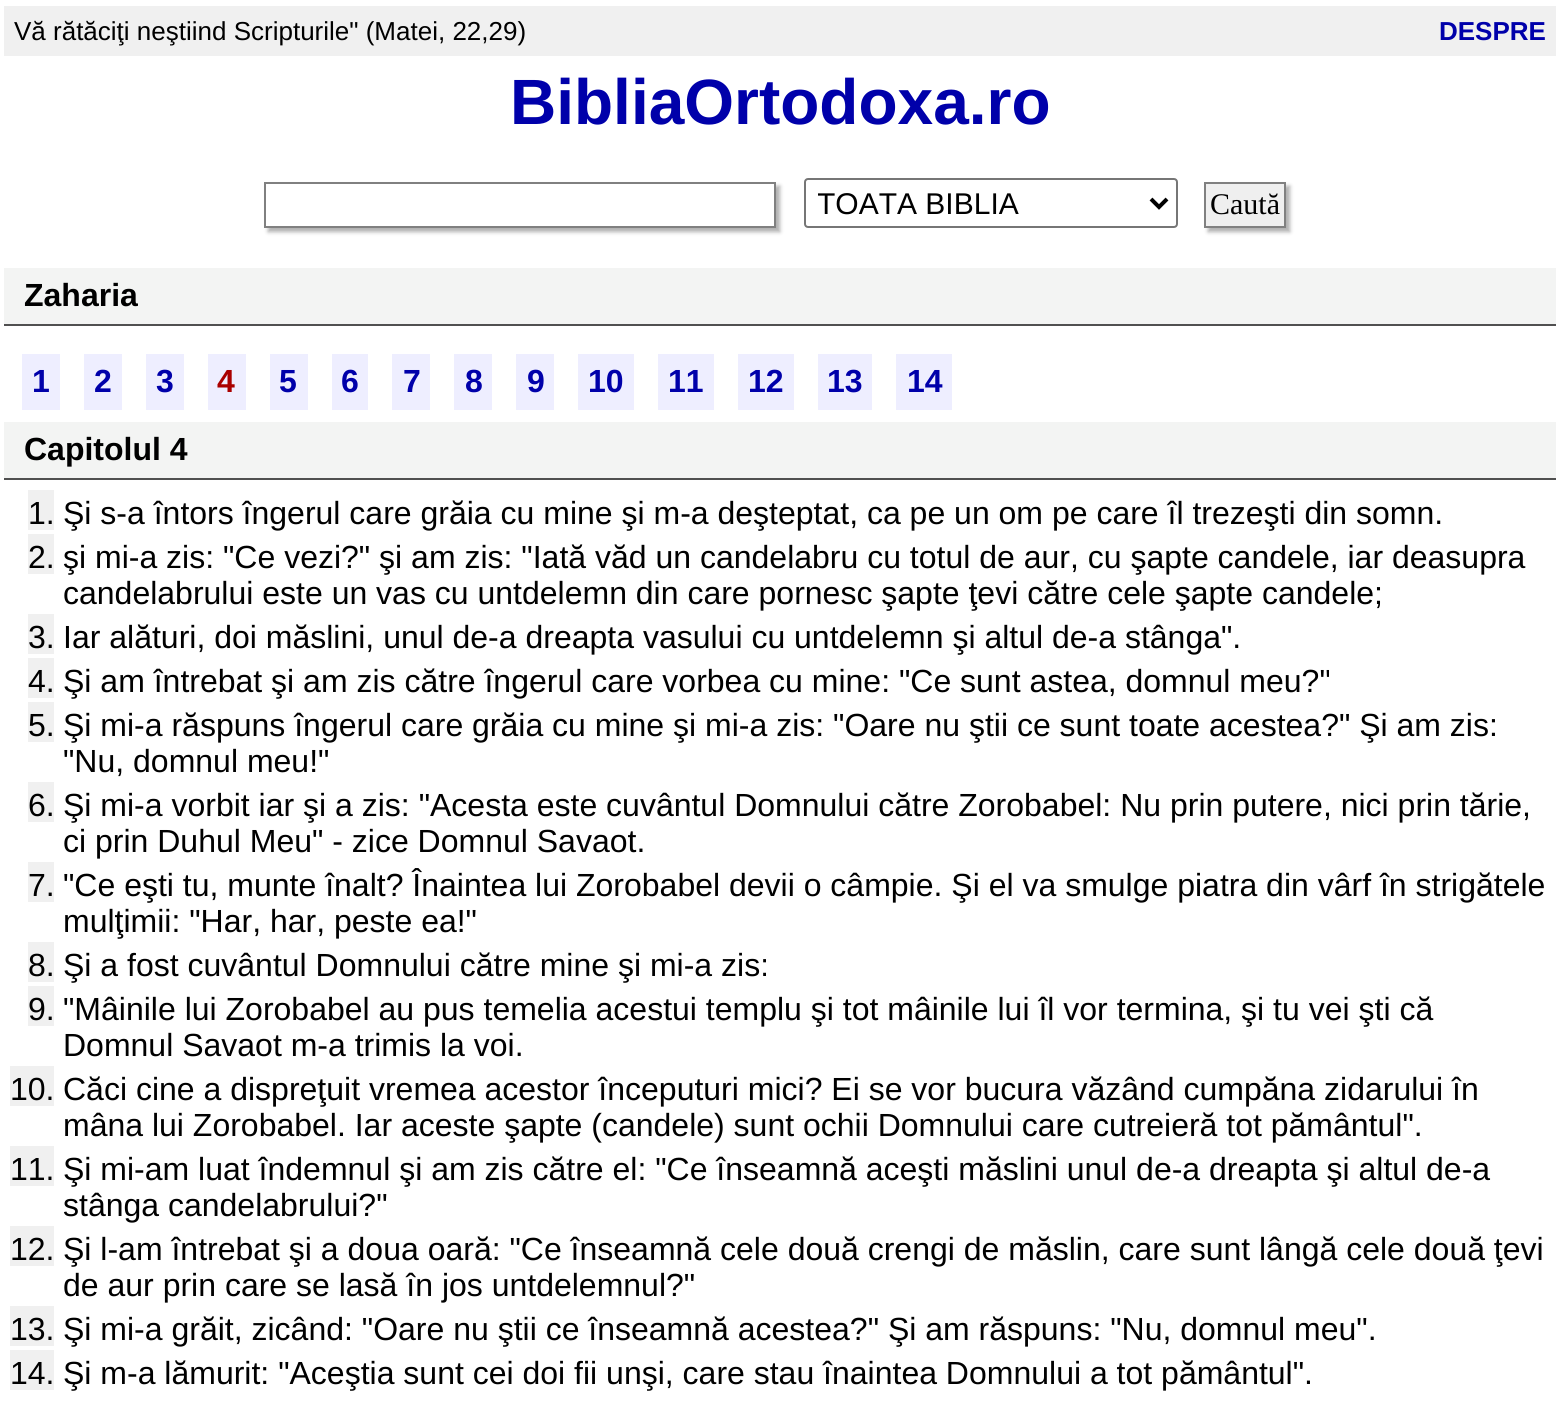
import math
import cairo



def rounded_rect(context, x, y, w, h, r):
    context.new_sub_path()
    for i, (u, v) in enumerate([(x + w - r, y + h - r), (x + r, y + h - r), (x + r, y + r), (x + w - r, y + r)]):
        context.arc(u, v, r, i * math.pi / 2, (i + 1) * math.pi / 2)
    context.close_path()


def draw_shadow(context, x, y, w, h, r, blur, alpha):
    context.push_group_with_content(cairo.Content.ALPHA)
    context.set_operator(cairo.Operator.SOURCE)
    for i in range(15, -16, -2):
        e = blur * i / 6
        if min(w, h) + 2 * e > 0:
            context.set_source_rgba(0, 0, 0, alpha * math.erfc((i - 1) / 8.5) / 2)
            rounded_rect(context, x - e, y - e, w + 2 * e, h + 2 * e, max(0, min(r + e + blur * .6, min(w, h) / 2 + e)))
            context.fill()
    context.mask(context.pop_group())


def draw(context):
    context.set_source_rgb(1, 1, 1)
    context.paint()
    context.set_source_rgb(240 / 255, 240 / 255, 240 / 255)
    context.rectangle(4, 6, 1552, 50)
    context.fill()
    context.save()
    context.set_fill_rule(cairo.FillRule.EVEN_ODD)
    context.new_path()
    context.move_to(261, 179)
    context.line_to(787, 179)
    context.line_to(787, 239)
    context.line_to(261, 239)
    context.close_path()
    context.move_to(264, 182)
    context.line_to(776, 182)
    context.line_to(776, 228)
    context.line_to(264, 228)
    context.close_path()
    context.clip()
    context.set_source_rgb(176 / 255, 176 / 255, 176 / 255)
    draw_shadow(context, 268, 186, 512, 46, 0, 2, 1)
    context.restore()
    context.rectangle(265, 183, 510, 44)
    context.set_source_rgb(128 / 255, 128 / 255, 128 / 255)
    context.stroke()
    rounded_rect(context, 805, 179, 372, 48, 3)
    context.set_source_rgb(118 / 255, 118 / 255, 118 / 255)
    context.stroke()
    context.new_path()
    context.move_to(1151, 199)
    context.line_to(1159, 207)
    context.line_to(1167, 199)
    context.set_source_rgb(0, 0, 0)
    context.set_line_width(4)
    context.stroke()
    context.set_source_rgb(176 / 255, 176 / 255, 176 / 255)
    draw_shadow(context, 1208, 186, 82, 46, 0, 2, 1)
    context.set_source_rgb(239 / 255, 239 / 255, 239 / 255)
    context.rectangle(1205, 183, 80, 44)
    context.fill_preserve()
    context.set_source_rgb(128 / 255, 128 / 255, 128 / 255)
    context.set_line_width(2)
    context.stroke()
    context.set_source_rgb(243 / 255, 244 / 255, 243 / 255)
    context.rectangle(4, 268, 1552, 56)
    context.fill()
    context.set_source_rgb(80 / 255, 80 / 255, 80 / 255)
    context.rectangle(4, 324, 1552, 2)
    context.fill()
    context.set_source_rgb(238 / 255, 238 / 255, 1)
    context.rectangle(22, 354, 38, 56)
    context.fill()
    context.rectangle(84, 354, 38, 56)
    context.fill()
    context.rectangle(146, 354, 38, 56)
    context.fill()
    context.rectangle(208, 354, 38, 56)
    context.fill()
    context.rectangle(270, 354, 38, 56)
    context.fill()
    context.rectangle(332, 354, 36, 56)
    context.fill()
    context.rectangle(392, 354, 38, 56)
    context.fill()
    context.rectangle(454, 354, 38, 56)
    context.fill()
    context.rectangle(516, 354, 38, 56)
    context.fill()
    context.rectangle(578, 354, 56, 56)
    context.fill()
    context.rectangle(658, 354, 56, 56)
    context.fill()
    context.rectangle(738, 354, 56, 56)
    context.fill()
    context.rectangle(818, 354, 54, 56)
    context.fill()
    context.rectangle(896, 354, 56, 56)
    context.fill()
    context.set_source_rgb(243 / 255, 244 / 255, 243 / 255)
    context.rectangle(4, 422, 1552, 56)
    context.fill()
    context.set_source_rgb(80 / 255, 80 / 255, 80 / 255)
    context.rectangle(4, 478, 1552, 2)
    context.fill()
    context.set_source_rgb(240 / 255, 240 / 255, 240 / 255)
    context.rectangle(28, 490, 26, 40)
    context.fill()
    context.rectangle(28, 534, 26, 40)
    context.fill()
    context.rectangle(28, 614, 26, 40)
    context.fill()
    context.rectangle(28, 658, 26, 40)
    context.fill()
    context.rectangle(28, 702, 26, 40)
    context.fill()
    context.rectangle(28, 782, 26, 40)
    context.fill()
    context.rectangle(28, 862, 26, 40)
    context.fill()
    context.rectangle(28, 942, 26, 40)
    context.fill()
    context.rectangle(28, 986, 26, 40)
    context.fill()
    context.rectangle(10, 1066, 44, 40)
    context.fill()
    context.rectangle(10, 1146, 44, 40)
    context.fill()
    context.rectangle(10, 1226, 44, 40)
    context.fill()
    context.rectangle(10, 1306, 44, 40)
    context.fill()
    context.rectangle(10, 1350, 44, 40)
    context.fill()
    context.select_font_face("Liberation Sans")
    context.set_font_size(26)
    context.set_source_rgb(0, 0, 0)
    context.move_to(14, 40)
    context.show_text("Vă rătăciţi neştiind Scripturile\" (Matei, 22,29)")
    context.select_font_face("Liberation Sans", cairo.FontSlant.NORMAL, cairo.FontWeight.BOLD)
    context.set_source_rgb(0, 0, 170 / 255)
    context.move_to(1439, 40)
    context.show_text("DESPRE")
    context.set_font_size(64)
    context.move_to(510, 124)
    context.show_text("BibliaOrtodoxa.ro")
    context.save()
    context.rectangle(818, 184, 322, 38)
    context.clip()
    context.select_font_face("Liberation Sans")
    context.set_font_size(30)
    context.set_source_rgb(0, 0, 0)
    context.move_to(817, 214)
    context.show_text("TOATA BIBLIA")
    context.restore()
    context.select_font_face("Liberation Serif")
    context.set_font_size(30)
    context.set_source_rgb(0, 0, 0)
    context.move_to(1210, 214)
    context.show_text("Caută")
    context.select_font_face("Liberation Sans", cairo.FontSlant.NORMAL, cairo.FontWeight.BOLD)
    context.set_font_size(32)
    context.move_to(24, 306)
    context.show_text("Zaharia")
    context.set_source_rgb(0, 0, 170 / 255)
    context.move_to(32, 392)
    context.show_text("1")
    context.move_to(94, 392)
    context.show_text("2")
    context.move_to(156, 392)
    context.show_text("3")
    context.set_source_rgb(170 / 255, 0, 0)
    context.move_to(217, 392)
    context.show_text("4")
    context.set_source_rgb(0, 0, 170 / 255)
    context.move_to(279, 392)
    context.show_text("5")
    context.move_to(341, 392)
    context.show_text("6")
    context.move_to(403, 392)
    context.show_text("7")
    context.move_to(465, 392)
    context.show_text("8")
    context.move_to(527, 392)
    context.show_text("9")
    context.move_to(588, 392)
    context.show_text("10")
    context.move_to(668, 392)
    context.show_text("11")
    context.move_to(748, 392)
    context.show_text("12")
    context.move_to(827, 392)
    context.show_text("13")
    context.move_to(907, 392)
    context.show_text("14")
    context.set_source_rgb(0, 0, 0)
    context.move_to(24, 460)
    context.show_text("Capitolul 4")
    context.select_font_face("Liberation Sans")
    context.move_to(28, 524)
    context.show_text("1.")
    context.move_to(63, 524)
    context.show_text("Şi s-a întors îngerul care grăia cu mine şi m-a deşteptat, ca pe un om pe care îl trezeşti din somn.")
    context.move_to(28, 568)
    context.show_text("2.")
    context.move_to(63, 568)
    context.show_text("şi mi-a zis: \"Ce vezi?\" şi am zis: \"Iată văd un candelabru cu totul de aur, cu şapte candele, iar deasupra")
    context.move_to(63, 604)
    context.show_text("candelabrului este un vas cu untdelemn din care pornesc şapte ţevi către cele şapte candele;")
    context.move_to(28, 648)
    context.show_text("3.")
    context.move_to(63, 648)
    context.show_text("Iar alături, doi măslini, unul de-a dreapta vasului cu untdelemn şi altul de-a stânga\".")
    context.move_to(28, 692)
    context.show_text("4.")
    context.move_to(63, 692)
    context.show_text("Şi am întrebat şi am zis către îngerul care vorbea cu mine: \"Ce sunt astea, domnul meu?\"")
    context.move_to(28, 736)
    context.show_text("5.")
    context.move_to(63, 736)
    context.show_text("Şi mi-a răspuns îngerul care grăia cu mine şi mi-a zis: \"Oare nu ştii ce sunt toate acestea?\" Şi am zis:")
    context.move_to(63, 772)
    context.show_text("\"Nu, domnul meu!\"")
    context.move_to(28, 816)
    context.show_text("6.")
    context.move_to(63, 816)
    context.show_text("Şi mi-a vorbit iar şi a zis: \"Acesta este cuvântul Domnului către Zorobabel: Nu prin putere, nici prin tărie,")
    context.move_to(63, 852)
    context.show_text("ci prin Duhul Meu\" - zice Domnul Savaot.")
    context.move_to(28, 896)
    context.show_text("7.")
    context.move_to(63, 896)
    context.show_text("\"Ce eşti tu, munte înalt? Înaintea lui Zorobabel devii o câmpie. Şi el va smulge piatra din vârf în strigătele")
    context.move_to(63, 932)
    context.show_text("mulţimii: \"Har, har, peste ea!\"")
    context.move_to(28, 976)
    context.show_text("8.")
    context.move_to(63, 976)
    context.show_text("Şi a fost cuvântul Domnului către mine şi mi-a zis:")
    context.move_to(28, 1020)
    context.show_text("9.")
    context.move_to(63, 1020)
    context.show_text("\"Mâinile lui Zorobabel au pus temelia acestui templu şi tot mâinile lui îl vor termina, şi tu vei şti că")
    context.move_to(63, 1056)
    context.show_text("Domnul Savaot m-a trimis la voi.")
    context.move_to(10, 1100)
    context.show_text("10.")
    context.move_to(63, 1100)
    context.show_text("Căci cine a dispreţuit vremea acestor începuturi mici? Ei se vor bucura văzând cumpăna zidarului în")
    context.move_to(63, 1136)
    context.show_text("mâna lui Zorobabel. Iar aceste şapte (candele) sunt ochii Domnului care cutreieră tot pământul\".")
    context.move_to(10, 1180)
    context.show_text("11.")
    context.move_to(63, 1180)
    context.show_text("Şi mi-am luat îndemnul şi am zis către el: \"Ce înseamnă aceşti măslini unul de-a dreapta şi altul de-a")
    context.move_to(63, 1216)
    context.show_text("stânga candelabrului?\"")
    context.move_to(10, 1260)
    context.show_text("12.")
    context.move_to(63, 1260)
    context.show_text("Şi l-am întrebat şi a doua oară: \"Ce înseamnă cele două crengi de măslin, care sunt lângă cele două ţevi")
    context.move_to(63, 1296)
    context.show_text("de aur prin care se lasă în jos untdelemnul?\"")
    context.move_to(10, 1340)
    context.show_text("13.")
    context.move_to(63, 1340)
    context.show_text("Şi mi-a grăit, zicând: \"Oare nu ştii ce înseamnă acestea?\" Şi am răspuns: \"Nu, domnul meu\".")
    context.move_to(10, 1384)
    context.show_text("14.")
    context.move_to(63, 1384)
    context.show_text("Şi m-a lămurit: \"Aceştia sunt cei doi fii unşi, care stau înaintea Domnului a tot pământul\".")


surface = cairo.ImageSurface(cairo.Format.RGB24, 1559, 1407)
context = cairo.Context(surface)
options = cairo.FontOptions()
options.set_hint_metrics(cairo.HintMetrics.OFF)
options.set_hint_style(cairo.HintStyle.NONE)
context.set_font_options(options)
context.set_miter_limit(4)
draw(context)
surface.write_to_png("out.png")
